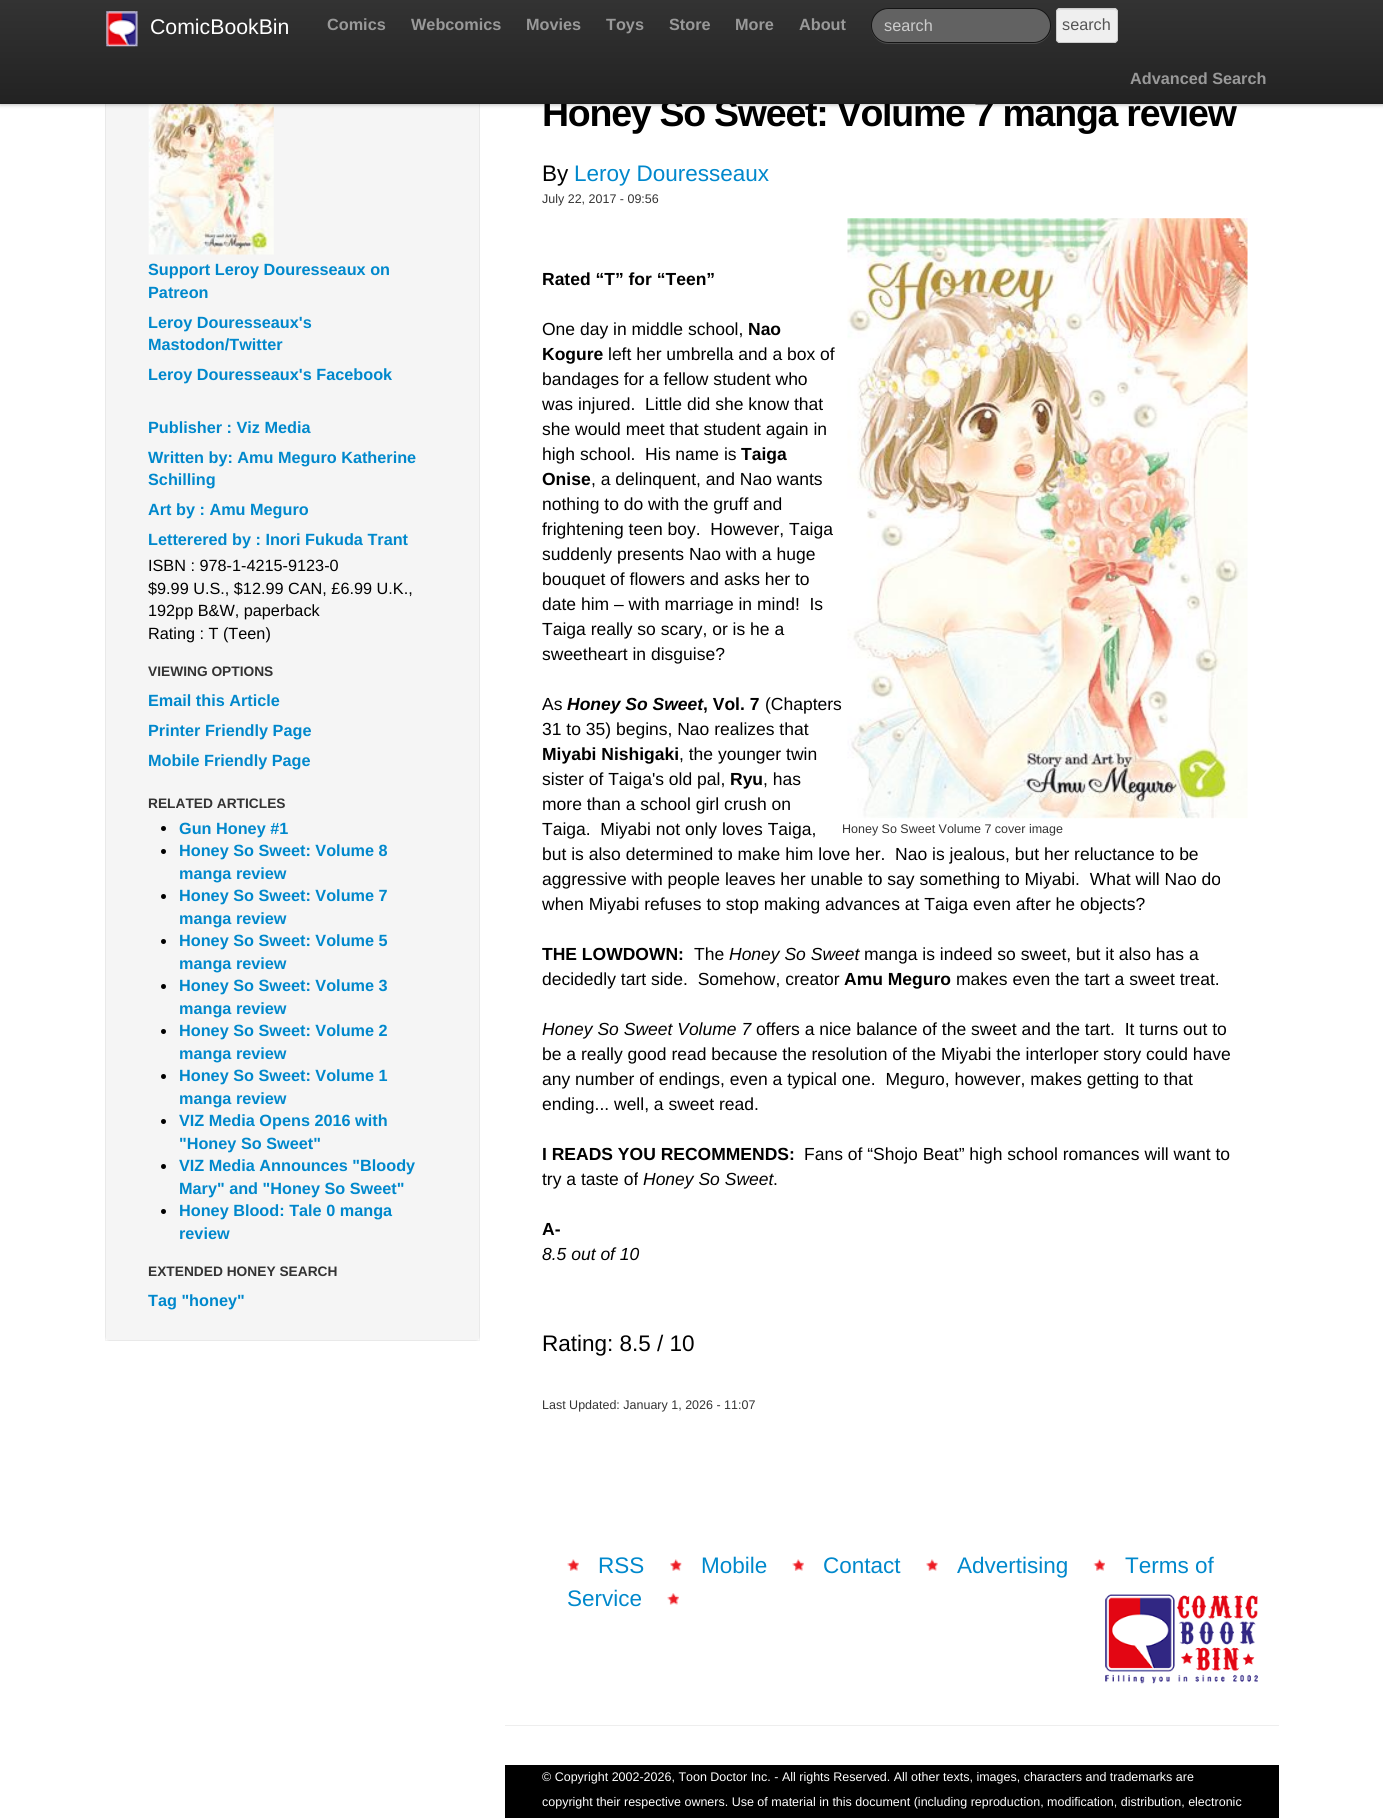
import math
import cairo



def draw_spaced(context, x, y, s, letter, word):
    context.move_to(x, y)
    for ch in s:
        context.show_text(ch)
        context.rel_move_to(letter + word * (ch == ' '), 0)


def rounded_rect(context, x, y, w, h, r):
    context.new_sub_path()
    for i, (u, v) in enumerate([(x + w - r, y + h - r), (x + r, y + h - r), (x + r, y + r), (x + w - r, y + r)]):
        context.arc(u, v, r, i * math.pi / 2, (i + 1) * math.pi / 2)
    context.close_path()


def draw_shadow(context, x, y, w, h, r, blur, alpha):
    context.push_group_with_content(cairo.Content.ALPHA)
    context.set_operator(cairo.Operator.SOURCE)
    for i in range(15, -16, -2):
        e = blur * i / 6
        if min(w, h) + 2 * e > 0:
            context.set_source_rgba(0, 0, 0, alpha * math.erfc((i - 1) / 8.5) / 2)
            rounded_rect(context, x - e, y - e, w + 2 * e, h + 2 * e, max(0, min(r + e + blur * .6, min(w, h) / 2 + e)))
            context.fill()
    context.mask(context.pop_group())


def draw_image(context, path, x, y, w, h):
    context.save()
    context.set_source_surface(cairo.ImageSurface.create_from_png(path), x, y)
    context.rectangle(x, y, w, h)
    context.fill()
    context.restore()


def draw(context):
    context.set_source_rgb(1, 1, 1)
    context.paint()
    context.set_source_rgb(245 / 255, 245 / 255, 245 / 255)
    rounded_rect(context, 105, 13, 375, 1328, 5)
    context.fill()
    context.rectangle(105.5, 13.5, 374, 1327)
    context.set_source_rgba(0, 0, 0, 0.05)
    context.set_line_width(1)
    context.stroke()
    draw_image(context, "images/2.png", 148, 104, 126, 151)
    context.set_source_rgb(0, 0, 0)
    draw_shadow(context, 0, 1, 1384, 104, 0, 2, 0.25)
    context.set_source_rgb(0, 0, 0)
    context.arc(163.5, 828.5, 2.5, 0, 2 * math.pi)
    context.fill()
    context.arc(163.5, 851.5, 2.5, 0, 2 * math.pi)
    context.fill()
    context.arc(163.5, 896.5, 2.5, 0, 2 * math.pi)
    context.fill()
    context.arc(163.5, 941.5, 2.5, 0, 2 * math.pi)
    context.fill()
    context.arc(163.5, 986.5, 2.5, 0, 2 * math.pi)
    context.fill()
    context.arc(163.5, 1031.5, 2.5, 0, 2 * math.pi)
    context.fill()
    context.arc(163.5, 1076.5, 2.5, 0, 2 * math.pi)
    context.fill()
    context.arc(163.5, 1121.5, 2.5, 0, 2 * math.pi)
    context.fill()
    context.arc(163.5, 1166.5, 2.5, 0, 2 * math.pi)
    context.fill()
    context.arc(163.5, 1211.5, 2.5, 0, 2 * math.pi)
    context.fill()
    draw_image(context, "images/3.png", 847, 218, 401, 601)
    draw_image(context, "images/4.png", 567, 1559, 12, 12)
    draw_image(context, "images/5.png", 670, 1559, 12, 12)
    draw_image(context, "images/6.png", 792, 1559, 12, 12)
    draw_image(context, "images/7.png", 926, 1559, 12, 12)
    draw_image(context, "images/8.png", 1093, 1559, 12, 12)
    draw_image(context, "images/9.png", 667, 1593, 12, 12)
    draw_image(context, "images/10.png", 1105, 1594, 153, 90)
    context.set_source_rgb(238 / 255, 238 / 255, 238 / 255)
    context.rectangle(505, 1725, 774, 1)
    context.fill()
    context.set_source_rgb(0, 0, 0)
    context.rectangle(505, 1765, 774, 53)
    context.fill()
    context.select_font_face("Liberation Sans", cairo.FontSlant.NORMAL, cairo.FontWeight.BOLD)
    context.set_font_size(16.25)
    context.set_source_rgb(0, 136 / 255, 204 / 255)
    context.move_to(148, 275)
    context.show_text("Support Leroy Douresseaux on")
    context.move_to(148, 298)
    context.show_text("Patreon")
    context.move_to(148, 328)
    context.show_text("Leroy Douresseaux's")
    context.move_to(148, 350)
    context.show_text("Mastodon/Twitter")
    context.move_to(148, 380)
    context.show_text("Leroy Douresseaux's Facebook")
    context.move_to(148, 433)
    context.show_text("Publisher : Viz Media")
    context.move_to(148, 463)
    context.show_text("Written by: Amu Meguro Katherine")
    context.move_to(148, 485)
    context.show_text("Schilling")
    context.move_to(148, 515)
    context.show_text("Art by : Amu Meguro")
    context.move_to(148, 545)
    context.show_text("Letterered by : Inori Fukuda Trant")
    context.select_font_face("Liberation Sans")
    context.set_source_rgb(0, 0, 0)
    context.move_to(148, 571)
    context.show_text("ISBN : 978-1-4215-9123-0")
    context.move_to(148, 594)
    context.show_text("$9.99 U.S., $12.99 CAN, £6.99 U.K.,")
    context.move_to(148, 616)
    context.show_text("192pp B&W, paperback")
    context.move_to(148, 639)
    context.show_text("Rating : T (Teen)")
    context.select_font_face("Liberation Sans", cairo.FontSlant.NORMAL, cairo.FontWeight.BOLD)
    context.set_font_size(13.75)
    context.set_source_rgb(51 / 255, 51 / 255, 51 / 255)
    context.move_to(148, 676)
    context.show_text("VIEWING OPTIONS")
    context.set_font_size(16.25)
    context.set_source_rgb(0, 136 / 255, 204 / 255)
    context.move_to(148, 706)
    context.show_text("Email this Article")
    context.move_to(148, 736)
    context.show_text("Printer Friendly Page")
    context.move_to(148, 766)
    context.show_text("Mobile Friendly Page")
    context.set_font_size(13.75)
    context.set_source_rgb(51 / 255, 51 / 255, 51 / 255)
    context.move_to(148, 808)
    context.show_text("RELATED ARTICLES")
    context.set_font_size(16.25)
    context.set_source_rgb(0, 136 / 255, 204 / 255)
    context.move_to(179, 834)
    context.show_text("Gun Honey #1")
    context.move_to(179, 856)
    context.show_text("Honey So Sweet: Volume 8")
    context.move_to(179, 879)
    context.show_text("manga review")
    context.move_to(179, 901)
    context.show_text("Honey So Sweet: Volume 7")
    context.move_to(179, 924)
    context.show_text("manga review")
    context.move_to(179, 946)
    context.show_text("Honey So Sweet: Volume 5")
    context.move_to(179, 969)
    context.show_text("manga review")
    context.move_to(179, 991)
    context.show_text("Honey So Sweet: Volume 3")
    context.move_to(179, 1014)
    context.show_text("manga review")
    context.move_to(179, 1036)
    context.show_text("Honey So Sweet: Volume 2")
    context.move_to(179, 1059)
    context.show_text("manga review")
    context.move_to(179, 1081)
    context.show_text("Honey So Sweet: Volume 1")
    context.move_to(179, 1104)
    context.show_text("manga review")
    context.move_to(179, 1126)
    context.show_text("VIZ Media Opens 2016 with")
    context.move_to(179, 1149)
    context.show_text("\"Honey So Sweet\"")
    context.move_to(179, 1171)
    context.show_text("VIZ Media Announces \"Bloody")
    context.move_to(179, 1194)
    context.show_text("Mary\" and \"Honey So Sweet\"")
    context.move_to(179, 1216)
    context.show_text("Honey Blood: Tale 0 manga")
    context.move_to(179, 1239)
    context.show_text("review")
    context.set_font_size(13.75)
    context.set_source_rgb(51 / 255, 51 / 255, 51 / 255)
    context.move_to(148, 1276)
    context.show_text("EXTENDED HONEY SEARCH")
    context.set_font_size(16.25)
    context.set_source_rgb(0, 136 / 255, 204 / 255)
    context.move_to(148, 1306)
    context.show_text("Tag \"honey\"")
    context.set_font_size(37.5)
    context.set_source_rgb(0, 0, 0)
    draw_spaced(context, 542, 126, "Honey So Sweet: Volume 7 manga review", -1.25, 0)
    gradient = cairo.LinearGradient(692, 0, 692, 104)
    gradient.add_color_stop_rgba(0, 51 / 255, 51 / 255, 51 / 255, 1)
    gradient.add_color_stop_rgba(1, 34 / 255, 34 / 255, 34 / 255, 1)
    context.set_source(gradient)
    context.rectangle(0, 0, 1383, 103)
    context.fill()
    context.set_font_size(16.25)
    context.set_source_rgb(153 / 255, 153 / 255, 153 / 255)
    context.move_to(1130, 84)
    context.show_text("Advanced Search")
    context.set_source_rgb(239 / 255, 239 / 255, 239 / 255)
    rounded_rect(context, 1056, 8, 62, 35, 4)
    context.fill()
    context.set_source_rgb(221 / 255, 221 / 255, 221 / 255)
    context.new_path()
    context.move_to(1060, 10)
    context.line_to(1114, 10)
    context.curve_to(1115, 10, 1116, 11, 1116, 12)
    context.curve_to(1116, 7, 1107, 9, 1105, 9)
    context.line_to(1069, 9)
    context.curve_to(1067, 9, 1058, 7, 1058, 12)
    context.curve_to(1058, 11, 1059, 10, 1060, 10)
    context.close_path()
    context.fill()
    rounded_rect(context, 1056.5, 8.5, 61, 34, 3.5)
    context.set_source_rgb(204 / 255, 204 / 255, 204 / 255)
    context.stroke()
    context.select_font_face("Liberation Sans")
    context.set_source_rgb(85 / 255, 85 / 255, 85 / 255)
    context.move_to(1062, 30)
    context.show_text("search")
    context.set_source_rgb(76 / 255, 76 / 255, 76 / 255)
    context.new_path()
    context.move_to(871, 23)
    context.line_to(871, 26)
    context.curve_to(871, 36, 879, 44, 888, 44)
    context.line_to(1034, 44)
    context.curve_to(1042, 44, 1050, 37, 1051, 29)
    context.curve_to(1049, 37, 1042, 42, 1034, 42)
    context.line_to(889, 42)
    context.curve_to(879, 42, 871, 35, 871, 25)
    context.close_path()
    context.fill()
    context.set_source_rgb(98 / 255, 98 / 255, 98 / 255)
    rounded_rect(context, 871.5, 8.5, 179, 34, 17)
    context.fill_preserve()
    context.set_source_rgb(21 / 255, 21 / 255, 21 / 255)
    context.stroke()
    context.set_source_rgb(204 / 255, 204 / 255, 204 / 255)
    context.move_to(884, 31)
    context.show_text("search")
    context.select_font_face("Liberation Sans", cairo.FontSlant.NORMAL, cairo.FontWeight.BOLD)
    context.set_source_rgb(153 / 255, 153 / 255, 153 / 255)
    context.move_to(799, 30)
    context.show_text("About")
    context.move_to(735, 30)
    context.show_text("More")
    context.move_to(411, 30)
    context.show_text("Webcomics")
    context.move_to(327, 30)
    context.show_text("Comics")
    context.move_to(669, 30)
    context.show_text("Store")
    context.move_to(606, 30)
    context.show_text("Toys")
    context.move_to(526, 30)
    context.show_text("Movies")
    context.select_font_face("Liberation Sans")
    context.set_font_size(21.25)
    context.set_source_rgb(1, 1, 1)
    context.move_to(150, 34)
    context.show_text("ComicBookBin")
    draw_image(context, "images/1.png", 106, 11, 32, 36)
    context.set_source_rgb(31 / 255, 31 / 255, 31 / 255)
    context.rectangle(0, 103, 1383, 1)
    context.fill()
    context.set_font_size(22.5)
    context.set_source_rgb(0, 0, 0)
    context.move_to(542, 181)
    context.show_text("By")
    context.set_source_rgb(0, 136 / 255, 204 / 255)
    context.move_to(574, 181)
    context.show_text("Leroy Douresseaux")
    context.set_font_size(12.5)
    context.set_source_rgb(51 / 255, 51 / 255, 51 / 255)
    context.move_to(542, 203)
    context.show_text("July 22, 2017 - 09:56")
    context.select_font_face("Liberation Sans", cairo.FontSlant.NORMAL, cairo.FontWeight.BOLD)
    context.set_font_size(17.5)
    context.set_source_rgb(0, 0, 0)
    context.move_to(542, 285)
    context.show_text("Rated “T” for “Teen”")
    context.select_font_face("Liberation Sans")
    context.move_to(542, 335)
    context.show_text("One day in middle school,")
    context.select_font_face("Liberation Sans", cairo.FontSlant.NORMAL, cairo.FontWeight.BOLD)
    context.move_to(748, 335)
    context.show_text("Nao")
    context.move_to(542, 360)
    context.show_text("Kogure")
    context.select_font_face("Liberation Sans")
    context.move_to(608, 360)
    context.show_text("left her umbrella and a box of")
    context.move_to(542, 385)
    context.show_text("bandages for a fellow student who")
    context.move_to(542, 410)
    context.show_text("was injured.  Little did she know that")
    context.move_to(542, 435)
    context.show_text("she would meet that student again in")
    context.move_to(542, 460)
    context.show_text("high school.  His name is")
    context.select_font_face("Liberation Sans", cairo.FontSlant.NORMAL, cairo.FontWeight.BOLD)
    context.move_to(741, 460)
    context.show_text("Taiga")
    context.move_to(542, 485)
    context.show_text("Onise")
    context.select_font_face("Liberation Sans")
    context.move_to(591, 485)
    context.show_text(", a delinquent, and Nao wants")
    context.move_to(542, 510)
    context.show_text("nothing to do with the gruff and")
    context.move_to(542, 535)
    context.show_text("frightening teen boy.  However, Taiga")
    context.move_to(542, 560)
    context.show_text("suddenly presents Nao with a huge")
    context.move_to(542, 585)
    context.show_text("bouquet of flowers and asks her to")
    context.move_to(542, 610)
    context.show_text("date him – with marriage in mind!  Is")
    context.move_to(542, 635)
    context.show_text("Taiga really so scary, or is he a")
    context.move_to(542, 660)
    context.show_text("sweetheart in disguise?")
    context.move_to(542, 710)
    context.show_text("As")
    context.select_font_face("Liberation Sans", cairo.FontSlant.ITALIC, cairo.FontWeight.BOLD)
    context.move_to(567, 710)
    context.show_text("Honey So Sweet")
    context.select_font_face("Liberation Sans", cairo.FontSlant.NORMAL, cairo.FontWeight.BOLD)
    context.move_to(703, 710)
    context.show_text(", Vol. 7")
    context.select_font_face("Liberation Sans")
    context.move_to(765, 710)
    context.show_text("(Chapters")
    context.move_to(542, 735)
    context.show_text("31 to 35) begins, Nao realizes that")
    context.select_font_face("Liberation Sans", cairo.FontSlant.NORMAL, cairo.FontWeight.BOLD)
    context.move_to(542, 760)
    context.show_text("Miyabi Nishigaki")
    context.select_font_face("Liberation Sans")
    context.move_to(679, 760)
    context.show_text(", the younger twin")
    context.move_to(542, 785)
    context.show_text("sister of Taiga's old pal,")
    context.select_font_face("Liberation Sans", cairo.FontSlant.NORMAL, cairo.FontWeight.BOLD)
    context.move_to(730, 785)
    context.show_text("Ryu")
    context.select_font_face("Liberation Sans")
    context.move_to(763, 785)
    context.show_text(", has")
    context.move_to(542, 810)
    context.show_text("more than a school girl crush on")
    context.move_to(542, 835)
    context.show_text("Taiga.  Miyabi not only loves Taiga,")
    context.set_font_size(12.5)
    context.set_source_rgb(51 / 255, 51 / 255, 51 / 255)
    context.move_to(842, 833)
    context.show_text("Honey So Sweet Volume 7 cover image")
    context.set_font_size(17.5)
    context.set_source_rgb(0, 0, 0)
    context.move_to(542, 860)
    context.show_text("but is also determined to make him love her.  Nao is jealous, but her reluctance to be")
    context.move_to(542, 885)
    context.show_text("aggressive with people leaves her unable to say something to Miyabi.  What will Nao do")
    context.move_to(542, 910)
    context.show_text("when Miyabi refuses to stop making advances at Taiga even after he objects?")
    context.select_font_face("Liberation Sans", cairo.FontSlant.NORMAL, cairo.FontWeight.BOLD)
    context.move_to(542, 960)
    context.show_text("THE LOWDOWN:")
    context.select_font_face("Liberation Sans")
    context.move_to(694, 960)
    context.show_text("The")
    context.select_font_face("Liberation Sans", cairo.FontSlant.ITALIC)
    context.move_to(729, 960)
    context.show_text("Honey So Sweet")
    context.select_font_face("Liberation Sans")
    context.move_to(864, 960)
    context.show_text("manga is indeed so sweet, but it also has a")
    context.move_to(542, 985)
    context.show_text("decidedly tart side.  Somehow, creator")
    context.select_font_face("Liberation Sans", cairo.FontSlant.NORMAL, cairo.FontWeight.BOLD)
    context.move_to(844, 985)
    context.show_text("Amu Meguro")
    context.select_font_face("Liberation Sans")
    context.move_to(956, 985)
    context.show_text("makes even the tart a sweet treat.")
    context.select_font_face("Liberation Sans", cairo.FontSlant.ITALIC)
    context.move_to(542, 1035)
    context.show_text("Honey So Sweet Volume 7")
    context.select_font_face("Liberation Sans")
    context.move_to(756, 1035)
    context.show_text("offers a nice balance of the sweet and the tart.  It turns out to")
    context.move_to(542, 1060)
    context.show_text("be a really good read because the resolution of the Miyabi the interloper story could have")
    context.move_to(542, 1085)
    context.show_text("any number of endings, even a typical one.  Meguro, however, makes getting to that")
    context.move_to(542, 1110)
    context.show_text("ending... well, a sweet read.")
    context.select_font_face("Liberation Sans", cairo.FontSlant.NORMAL, cairo.FontWeight.BOLD)
    context.move_to(542, 1160)
    context.show_text("I READS YOU RECOMMENDS:")
    context.select_font_face("Liberation Sans")
    context.move_to(804, 1160)
    context.show_text("Fans of “Shojo Beat” high school romances will want to")
    context.move_to(542, 1185)
    context.show_text("try a taste of")
    context.select_font_face("Liberation Sans", cairo.FontSlant.ITALIC)
    context.move_to(643, 1185)
    context.show_text("Honey So Sweet")
    context.select_font_face("Liberation Sans")
    context.move_to(773, 1185)
    context.show_text(".")
    context.select_font_face("Liberation Sans", cairo.FontSlant.NORMAL, cairo.FontWeight.BOLD)
    context.move_to(542, 1235)
    context.show_text("A-")
    context.select_font_face("Liberation Sans", cairo.FontSlant.ITALIC)
    context.move_to(542, 1260)
    context.show_text("8.5 out of 10")
    context.select_font_face("Liberation Sans")
    context.set_font_size(22.5)
    context.move_to(542, 1351)
    context.show_text("Rating: 8.5 / 10")
    context.set_font_size(12.5)
    context.set_source_rgb(51 / 255, 51 / 255, 51 / 255)
    context.move_to(542, 1409)
    context.show_text("Last Updated: January 1, 2026 - 11:07")
    context.set_font_size(22.5)
    context.set_source_rgb(0, 136 / 255, 204 / 255)
    context.move_to(598, 1573)
    context.show_text("RSS")
    context.move_to(701, 1573)
    context.show_text("Mobile")
    context.move_to(823, 1573)
    context.show_text("Contact")
    context.move_to(957, 1573)
    context.show_text("Advertising")
    context.move_to(1125, 1573)
    context.show_text("Terms of")
    context.move_to(567, 1606)
    context.show_text("Service")
    context.set_font_size(12.5)
    context.set_source_rgb(1, 1, 1)
    context.move_to(542, 1781)
    context.show_text("© Copyright 2002-2026, Toon Doctor Inc. - All rights Reserved. All other texts, images, characters and trademarks are")
    context.move_to(542, 1806)
    context.show_text("copyright their respective owners. Use of material in this document (including reproduction, modification, distribution, electronic")


surface = cairo.ImageSurface(cairo.Format.RGB24, 1383, 1818)
context = cairo.Context(surface)
options = cairo.FontOptions()
options.set_hint_metrics(cairo.HintMetrics.OFF)
options.set_hint_style(cairo.HintStyle.NONE)
context.set_font_options(options)
context.set_miter_limit(4)
draw(context)
surface.write_to_png("out.png")
